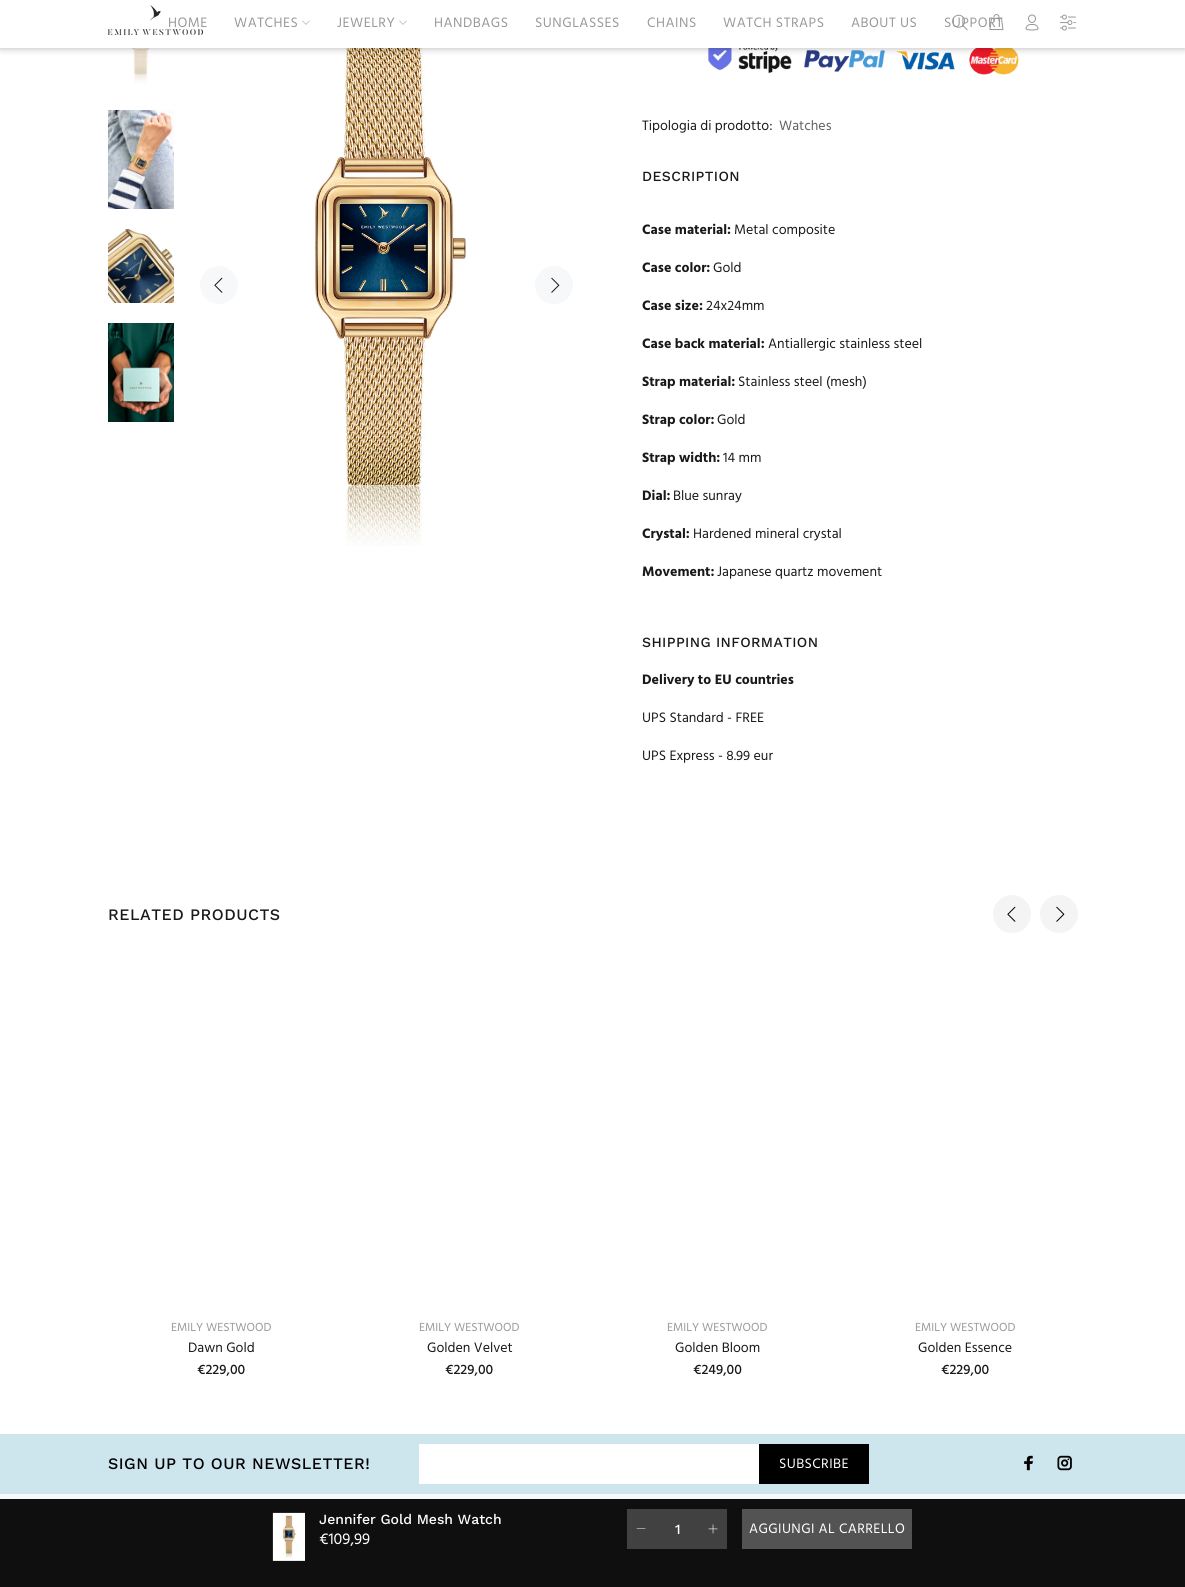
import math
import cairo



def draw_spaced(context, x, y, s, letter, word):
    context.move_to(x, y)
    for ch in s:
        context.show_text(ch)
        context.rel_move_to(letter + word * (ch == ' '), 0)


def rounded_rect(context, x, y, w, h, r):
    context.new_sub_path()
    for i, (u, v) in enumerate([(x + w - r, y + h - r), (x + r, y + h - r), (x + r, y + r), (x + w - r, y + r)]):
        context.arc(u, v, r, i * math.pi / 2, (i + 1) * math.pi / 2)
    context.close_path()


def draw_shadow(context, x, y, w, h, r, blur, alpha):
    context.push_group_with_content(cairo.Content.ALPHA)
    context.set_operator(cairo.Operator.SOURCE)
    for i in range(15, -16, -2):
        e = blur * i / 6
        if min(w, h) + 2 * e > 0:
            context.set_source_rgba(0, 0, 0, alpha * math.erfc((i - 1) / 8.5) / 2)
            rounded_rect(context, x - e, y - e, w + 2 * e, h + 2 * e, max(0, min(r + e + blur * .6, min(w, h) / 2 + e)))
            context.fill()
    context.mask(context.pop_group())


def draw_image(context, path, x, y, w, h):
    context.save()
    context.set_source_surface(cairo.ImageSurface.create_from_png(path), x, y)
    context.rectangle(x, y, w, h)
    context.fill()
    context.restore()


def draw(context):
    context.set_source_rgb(1, 1, 1)
    context.paint()
    draw_image(context, "images/7.png", 128, 48, 28, 36)
    draw_image(context, "images/11.png", 314, 48, 152, 498)
    draw_image(context, "images/14.png", 708, 48, 311, 27)
    context.set_source_rgb(0, 0, 0)
    draw_shadow(context, 0, 0, 1185, 48, 0, 4, 0.3)
    context.set_source_rgb(1, 1, 1)
    context.rectangle(0, 0, 1185, 48)
    context.fill()
    draw_image(context, "images/1.png", 108, 5, 95, 30)
    draw_image(context, "images/2.png", 302, 20, 8, 5)
    draw_image(context, "images/2.png", 399, 20, 8, 5)
    draw_image(context, "images/5.png", 1025, 14, 14, 17)
    draw_image(context, "images/6.png", 1060, 14, 16, 17)
    draw_image(context, "images/8.png", 108, 110, 66, 99)
    draw_image(context, "images/9.png", 108, 229, 66, 74)
    draw_image(context, "images/10.png", 108, 323, 66, 99)
    context.set_source_rgb(247 / 255, 248 / 255, 250 / 255)
    context.arc(219, 285, 19, 0, 2 * math.pi)
    context.fill()
    draw_image(context, "images/12.png", 214, 277, 9, 16)
    context.arc(554, 285, 19, 0, 2 * math.pi)
    context.fill()
    draw_image(context, "images/13.png", 551, 277, 9, 16)
    context.set_source_rgb(245 / 255, 244 / 255, 244 / 255)
    context.arc(1012, 914, 19, 0, 2 * math.pi)
    context.fill()
    draw_image(context, "images/15.png", 1007, 906, 9, 16)
    context.arc(1059, 914, 19, 0, 2 * math.pi)
    context.fill()
    draw_image(context, "images/16.png", 1056, 906, 9, 16)
    context.set_source_rgb(15 / 255, 15 / 255, 15 / 255)
    context.rectangle(0, 1499, 1185, 88)
    context.fill()
    draw_image(context, "images/17.png", 272, 1512, 33, 49)
    context.set_source_rgb(65 / 255, 65 / 255, 65 / 255)
    context.rectangle(627, 1509, 100, 40)
    context.fill()
    context.set_source_rgb(1, 1, 1)
    context.new_path()
    context.move_to(645.5, 1528.5)
    context.line_to(645.5, 1529)
    context.line_to(636.5, 1529)
    context.line_to(637, 1528.5)
    context.close_path()
    context.fill()
    draw_image(context, "images/18.png", 708, 1524, 10, 10)
    context.set_source_rgb(83 / 255, 83 / 255, 83 / 255)
    context.rectangle(742, 1509, 170, 40)
    context.fill()
    context.set_source_rgb(247 / 255, 248 / 255, 250 / 255)
    context.rectangle(0, 1494, 1185, 5)
    context.fill()
    context.set_source_rgb(205 / 255, 229 / 255, 237 / 255)
    context.rectangle(0, 1434, 1185, 60)
    context.fill()
    context.set_source_rgb(1, 1, 1)
    context.rectangle(419, 1444, 340, 40)
    context.fill()
    context.set_source_rgb(0, 0, 0)
    context.rectangle(759, 1444, 110, 40)
    context.fill()
    draw_image(context, "images/19.png", 1024, 1455, 10, 16)
    draw_image(context, "images/20.png", 1057, 1455, 15, 16)
    context.select_font_face("Hind")
    context.set_font_size(14)
    context.set_source_rgb(153 / 255, 153 / 255, 153 / 255)
    draw_spaced(context, 168, 27, "HOME", 0.5, 0)
    draw_spaced(context, 234, 27, "WATCHES", 0.5, 0)
    draw_spaced(context, 337, 27, "JEWELRY", 0.5, 0)
    draw_spaced(context, 434, 27, "HANDBAGS", 0.5, 0)
    draw_spaced(context, 535, 27, "SUNGLASSES", 0.5, 0)
    draw_spaced(context, 647, 27, "CHAINS", 0.5, 0)
    draw_spaced(context, 723, 27, "WATCH STRAPS", 0.5, 0)
    draw_spaced(context, 851, 27, "ABOUT US", 0.5, 0)
    draw_spaced(context, 944, 27, "SUPPORT", 0.5, 0)
    draw_image(context, "images/3.png", 952, 14, 16, 17)
    draw_image(context, "images/4.png", 989, 14, 15, 17)
    context.set_source_rgb(25 / 255, 25 / 255, 25 / 255)
    context.move_to(642, 130)
    context.show_text("Tipologia di prodotto:")
    context.set_source_rgb(96 / 255, 96 / 255, 96 / 255)
    context.move_to(779, 130)
    context.show_text("Watches")
    context.select_font_face("Work Sans Medium")
    context.set_source_rgb(25 / 255, 25 / 255, 25 / 255)
    draw_spaced(context, 642, 181, "DESCRIPTION", 0.4, 0)
    context.select_font_face("Hind", cairo.FontSlant.NORMAL, cairo.FontWeight.BOLD)
    context.move_to(642, 234)
    context.show_text("Case material:")
    context.select_font_face("Hind")
    context.move_to(734, 234)
    context.show_text("Metal composite")
    context.select_font_face("Hind", cairo.FontSlant.NORMAL, cairo.FontWeight.BOLD)
    context.move_to(642, 272)
    context.show_text("Case color:")
    context.select_font_face("Hind")
    context.move_to(713, 272)
    context.show_text("Gold")
    context.select_font_face("Hind", cairo.FontSlant.NORMAL, cairo.FontWeight.BOLD)
    context.move_to(642, 310)
    context.show_text("Case size:")
    context.select_font_face("Hind")
    context.move_to(706, 310)
    context.show_text("24x24mm")
    context.select_font_face("Hind", cairo.FontSlant.NORMAL, cairo.FontWeight.BOLD)
    context.move_to(642, 348)
    context.show_text("Case back material:")
    context.select_font_face("Hind")
    context.move_to(768, 348)
    context.show_text("Antiallergic stainless steel")
    context.select_font_face("Hind", cairo.FontSlant.NORMAL, cairo.FontWeight.BOLD)
    context.move_to(642, 386)
    context.show_text("Strap material:")
    context.select_font_face("Hind")
    context.move_to(738, 386)
    context.show_text("Stainless steel (mesh)")
    context.select_font_face("Hind", cairo.FontSlant.NORMAL, cairo.FontWeight.BOLD)
    context.move_to(642, 424)
    context.show_text("Strap color:")
    context.select_font_face("Hind")
    context.move_to(717, 424)
    context.show_text("Gold")
    context.select_font_face("Hind", cairo.FontSlant.NORMAL, cairo.FontWeight.BOLD)
    context.move_to(642, 462)
    context.show_text("Strap width:")
    context.select_font_face("Hind")
    context.move_to(723, 462)
    context.show_text("14 mm")
    context.select_font_face("Hind", cairo.FontSlant.NORMAL, cairo.FontWeight.BOLD)
    context.move_to(642, 500)
    context.show_text("Dial:")
    context.select_font_face("Hind")
    context.move_to(673, 500)
    context.show_text("Blue sunray")
    context.select_font_face("Hind", cairo.FontSlant.NORMAL, cairo.FontWeight.BOLD)
    context.move_to(642, 538)
    context.show_text("Crystal:")
    context.select_font_face("Hind")
    context.move_to(693, 538)
    context.show_text("Hardened mineral crystal")
    context.select_font_face("Hind", cairo.FontSlant.NORMAL, cairo.FontWeight.BOLD)
    context.move_to(642, 576)
    context.show_text("Movement:")
    context.select_font_face("Hind")
    context.move_to(717, 576)
    context.show_text("Japanese quartz movement")
    context.select_font_face("Work Sans Medium")
    draw_spaced(context, 642, 647, "SHIPPING INFORMATION", 0.4, 0)
    context.select_font_face("Hind", cairo.FontSlant.NORMAL, cairo.FontWeight.BOLD)
    context.move_to(642, 684)
    context.show_text("Delivery to EU countries")
    context.select_font_face("Hind")
    context.move_to(642, 722)
    context.show_text("UPS Standard - FREE")
    context.move_to(642, 760)
    context.show_text("UPS Express - 8.99 eur")
    context.select_font_face("Work Sans Medium")
    context.set_font_size(16)
    draw_spaced(context, 108, 920, "RELATED PRODUCTS", 0.5, 0)
    context.select_font_face("Hind")
    context.set_font_size(12)
    context.set_source_rgb(153 / 255, 153 / 255, 153 / 255)
    context.move_to(171, 1331)
    context.show_text("EMILY WESTWOOD")
    context.set_font_size(14)
    context.set_source_rgb(25 / 255, 25 / 255, 25 / 255)
    context.move_to(188, 1352)
    context.show_text("Dawn Gold")
    context.select_font_face("Hind Medium")
    context.move_to(197, 1374)
    context.show_text("€229,00")
    context.select_font_face("Hind")
    context.set_font_size(12)
    context.set_source_rgb(153 / 255, 153 / 255, 153 / 255)
    context.move_to(419, 1331)
    context.show_text("EMILY WESTWOOD")
    context.set_font_size(14)
    context.set_source_rgb(25 / 255, 25 / 255, 25 / 255)
    context.move_to(427, 1352)
    context.show_text("Golden Velvet")
    context.select_font_face("Hind Medium")
    context.move_to(445, 1374)
    context.show_text("€229,00")
    context.select_font_face("Hind")
    context.set_font_size(12)
    context.set_source_rgb(153 / 255, 153 / 255, 153 / 255)
    context.move_to(667, 1331)
    context.show_text("EMILY WESTWOOD")
    context.set_font_size(14)
    context.set_source_rgb(25 / 255, 25 / 255, 25 / 255)
    context.move_to(675, 1352)
    context.show_text("Golden Bloom")
    context.select_font_face("Hind Medium")
    context.move_to(693, 1374)
    context.show_text("€249,00")
    context.select_font_face("Hind")
    context.set_font_size(12)
    context.set_source_rgb(153 / 255, 153 / 255, 153 / 255)
    context.move_to(915, 1331)
    context.show_text("EMILY WESTWOOD")
    context.set_font_size(14)
    context.set_source_rgb(25 / 255, 25 / 255, 25 / 255)
    context.move_to(918, 1352)
    context.show_text("Golden Essence")
    context.select_font_face("Hind Medium")
    context.move_to(941, 1374)
    context.show_text("€229,00")
    context.select_font_face("Work Sans Medium")
    context.set_source_rgb(1, 1, 1)
    context.move_to(319, 1524)
    context.show_text("Jennifer Gold Mesh Watch")
    context.select_font_face("Hind")
    context.set_font_size(16)
    context.move_to(319, 1544)
    context.show_text("€109,99")
    context.select_font_face("Work Sans Medium")
    context.set_font_size(14)
    context.move_to(675, 1534)
    context.show_text("1")
    context.select_font_face("Hind")
    draw_spaced(context, 749, 1533, "AGGIUNGI AL CARRELLO", 0.4, 0)
    context.select_font_face("Work Sans Medium")
    context.set_font_size(16)
    context.set_source_rgb(0, 0, 0)
    draw_spaced(context, 108, 1469, "SIGN UP TO OUR NEWSLETTER!", 0.5, 0)
    context.select_font_face("Hind")
    context.set_font_size(14)
    context.set_source_rgb(1, 1, 1)
    draw_spaced(context, 779, 1468, "SUBSCRIBE", 0.4, 0)


surface = cairo.ImageSurface(cairo.Format.RGB24, 1185, 1587)
context = cairo.Context(surface)
options = cairo.FontOptions()
options.set_hint_metrics(cairo.HintMetrics.OFF)
options.set_hint_style(cairo.HintStyle.NONE)
context.set_font_options(options)
context.set_miter_limit(4)
draw(context)
surface.write_to_png("out.png")
